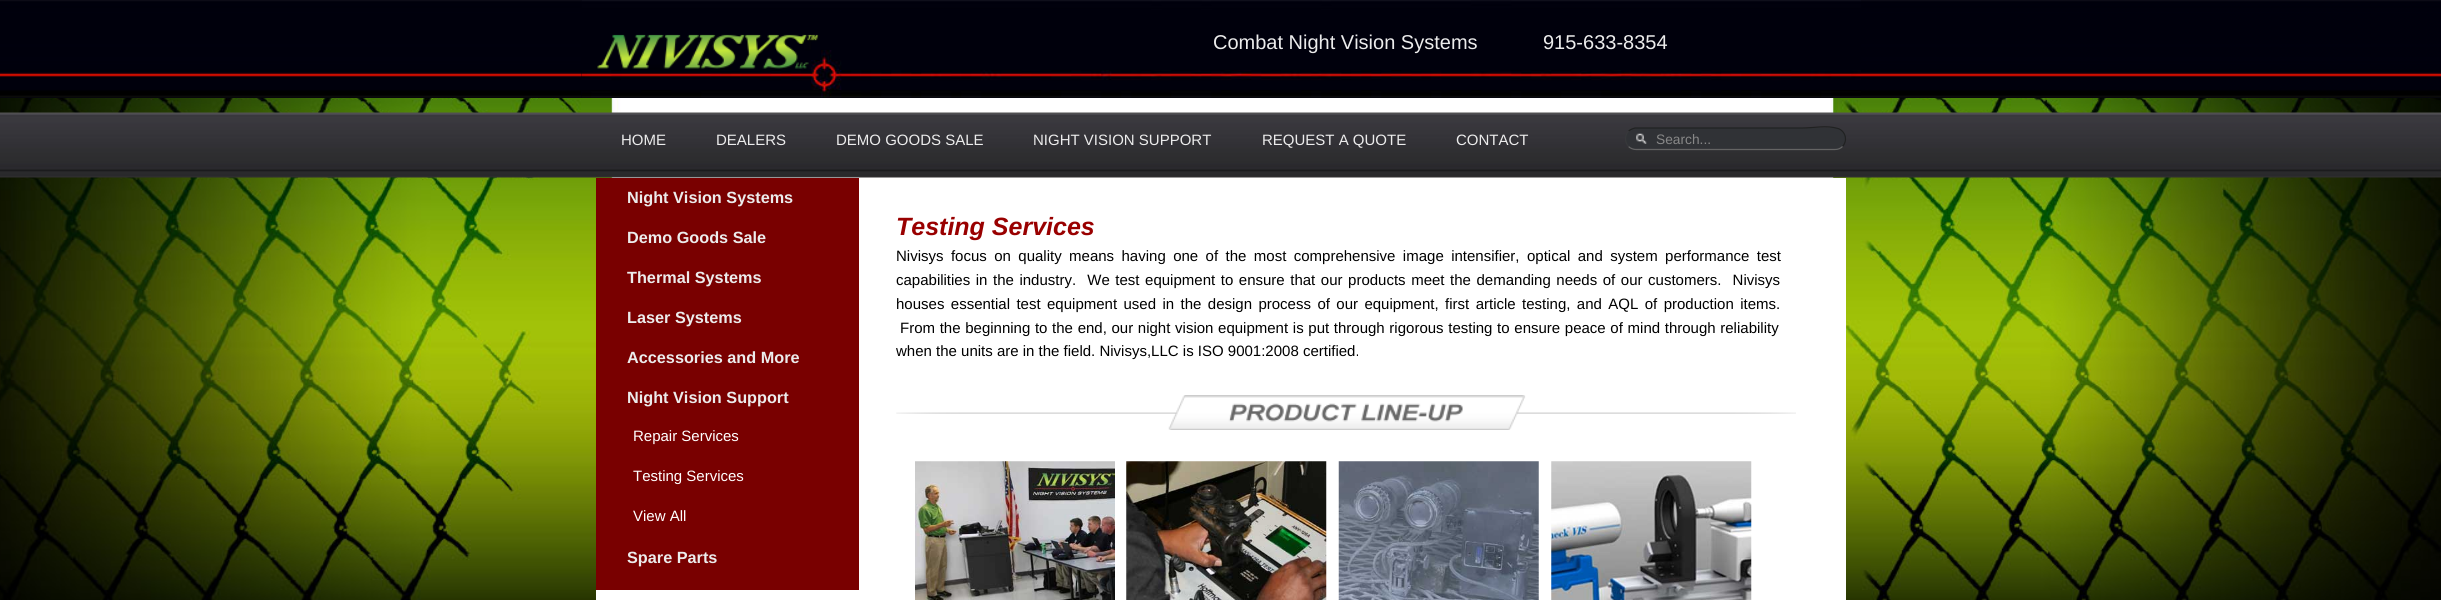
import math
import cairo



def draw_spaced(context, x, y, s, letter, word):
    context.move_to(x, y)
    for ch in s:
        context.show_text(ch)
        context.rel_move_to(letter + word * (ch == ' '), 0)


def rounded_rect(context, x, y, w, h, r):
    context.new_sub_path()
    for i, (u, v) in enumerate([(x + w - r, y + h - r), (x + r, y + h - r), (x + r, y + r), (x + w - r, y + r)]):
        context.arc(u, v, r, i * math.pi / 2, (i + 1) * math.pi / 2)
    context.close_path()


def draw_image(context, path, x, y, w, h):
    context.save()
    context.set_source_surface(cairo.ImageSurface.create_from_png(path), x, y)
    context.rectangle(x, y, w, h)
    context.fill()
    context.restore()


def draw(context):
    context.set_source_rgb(1, 1, 1)
    context.paint()
    draw_image(context, "images/1.png", 0, 98, 2441, 502)
    context.set_source_rgb(0, 0, 12 / 255)
    context.rectangle(0, 97, 2441, 1)
    context.fill()
    draw_image(context, "images/2.png", 0, 0, 2441, 98)
    context.rectangle(581, 0, 1280, 98)
    context.fill()
    draw_image(context, "images/3.png", 581, 0, 1280, 98)
    draw_image(context, "images/4.png", 597, 34, 222, 35)
    draw_image(context, "images/5.png", 0, 112, 2441, 66)
    context.set_source_rgb(48 / 255, 50 / 255, 54 / 255)
    rounded_rect(context, 1625, 128, 221, 22, 11)
    context.fill()
    draw_image(context, "images/6.png", 1636, 133, 11, 11)
    context.new_path()
    context.move_to(1628.5, 131)
    context.curve_to(1630.5, 129.5, 1633, 128.5, 1635, 128)
    context.line_to(1802, 128)
    context.curve_to(1814, 128, 1826.5, 125, 1838, 128.5)
    context.curve_to(1845.5, 131, 1848, 140.5, 1842.5, 146.5)
    context.set_source_rgb(32 / 255, 33 / 255, 33 / 255)
    context.set_line_width(1.2)
    context.stroke()
    context.new_path()
    context.move_to(1842.5, 146.5)
    context.curve_to(1840.5, 148.5, 1838, 149.5, 1835, 149.5)
    context.line_to(1636, 149.5)
    context.curve_to(1633.5, 149.5, 1630.5, 148.5, 1628.5, 146.5)
    context.set_source_rgb(100 / 255, 100 / 255, 100 / 255)
    context.stroke()
    context.new_path()
    context.move_to(1628.5, 146.5)
    context.curve_to(1624.5, 142, 1624.5, 135.5, 1628.5, 131)
    context.set_source_rgb(55 / 255, 56 / 255, 58 / 255)
    context.stroke()
    context.set_source_rgb(1, 1, 1)
    context.rectangle(596, 178, 1250, 422)
    context.fill()
    context.set_source_rgb(121 / 255, 0, 0)
    context.rectangle(596, 178, 263, 412)
    context.fill()
    draw_image(context, "images/7.png", 896, 395, 900, 35)
    draw_image(context, "images/8.png", 915, 461, 200, 139)
    draw_image(context, "images/9.png", 1126, 461, 201, 139)
    draw_image(context, "images/10.png", 1338, 461, 201, 139)
    draw_image(context, "images/11.png", 1551, 461, 201, 139)
    context.select_font_face("Liberation Sans")
    context.set_font_size(20)
    context.set_source_rgb(236 / 255, 236 / 255, 236 / 255)
    context.move_to(1213, 49)
    context.show_text("Combat Night Vision Systems")
    context.move_to(1543, 49)
    context.show_text("915-633-8354")
    context.set_font_size(15)
    context.move_to(621, 145)
    context.show_text("HOME")
    context.move_to(716, 145)
    context.show_text("DEALERS")
    context.move_to(836, 145)
    context.show_text("DEMO GOODS SALE")
    context.move_to(1033, 145)
    context.show_text("NIGHT VISION SUPPORT")
    context.move_to(1262, 145)
    context.show_text("REQUEST A QUOTE")
    context.move_to(1456, 145)
    context.show_text("CONTACT")
    context.set_font_size(13.75)
    context.set_source_rgb(136 / 255, 136 / 255, 136 / 255)
    context.move_to(1656, 144)
    context.show_text("Search...")
    context.select_font_face("Liberation Sans", cairo.FontSlant.NORMAL, cairo.FontWeight.BOLD)
    context.set_font_size(16.25)
    context.set_source_rgb(236 / 255, 236 / 255, 236 / 255)
    context.move_to(627, 203)
    context.show_text("Night Vision Systems")
    context.move_to(627, 243)
    context.show_text("Demo Goods Sale")
    context.move_to(627, 283)
    context.show_text("Thermal Systems")
    context.move_to(627, 323)
    context.show_text("Laser Systems")
    context.move_to(627, 363)
    context.show_text("Accessories and More")
    context.move_to(627, 403)
    context.show_text("Night Vision Support")
    context.select_font_face("Liberation Sans")
    context.set_font_size(15)
    context.set_source_rgb(1, 1, 1)
    context.move_to(633, 441)
    context.show_text("Repair Services")
    context.move_to(633, 481)
    context.show_text("Testing Services")
    context.move_to(633, 521)
    context.show_text("View All")
    context.select_font_face("Liberation Sans", cairo.FontSlant.NORMAL, cairo.FontWeight.BOLD)
    context.set_font_size(16.25)
    context.set_source_rgb(236 / 255, 236 / 255, 236 / 255)
    context.move_to(627, 563)
    context.show_text("Spare Parts")
    context.select_font_face("Liberation Sans", cairo.FontSlant.ITALIC, cairo.FontWeight.BOLD)
    context.set_font_size(25)
    context.set_source_rgb(153 / 255, 0, 0)
    context.move_to(896, 235)
    context.show_text("Testing Services")
    context.select_font_face("Liberation Sans")
    context.set_font_size(15)
    context.set_source_rgb(0, 0, 0)
    draw_spaced(context, 896, 261, "Nivisys focus on quality means having one of the most comprehensive image intensifier, optical and system performance test", 0, 3.25)
    draw_spaced(context, 896, 285, "capabilities in the industry.  We test equipment to ensure that our products meet the demanding needs of our customers.  Nivisys", 0, 1.4)
    draw_spaced(context, 896, 309, "houses essential test equipment used in the design process of our equipment, first article testing, and AQL of production items.", 0, 2.25)
    draw_spaced(context, 900, 333, "From the beginning to the end, our night vision equipment is put through rigorous testing to ensure peace of mind through reliability", 0, 0.5)
    context.move_to(896, 356)
    context.show_text("when the units are in the field. Nivisys,LLC is ISO 9001:2008 certified.")


surface = cairo.ImageSurface(cairo.Format.RGB24, 2441, 600)
context = cairo.Context(surface)
options = cairo.FontOptions()
options.set_hint_metrics(cairo.HintMetrics.OFF)
options.set_hint_style(cairo.HintStyle.NONE)
context.set_font_options(options)
context.set_miter_limit(4)
draw(context)
surface.write_to_png("out.png")
